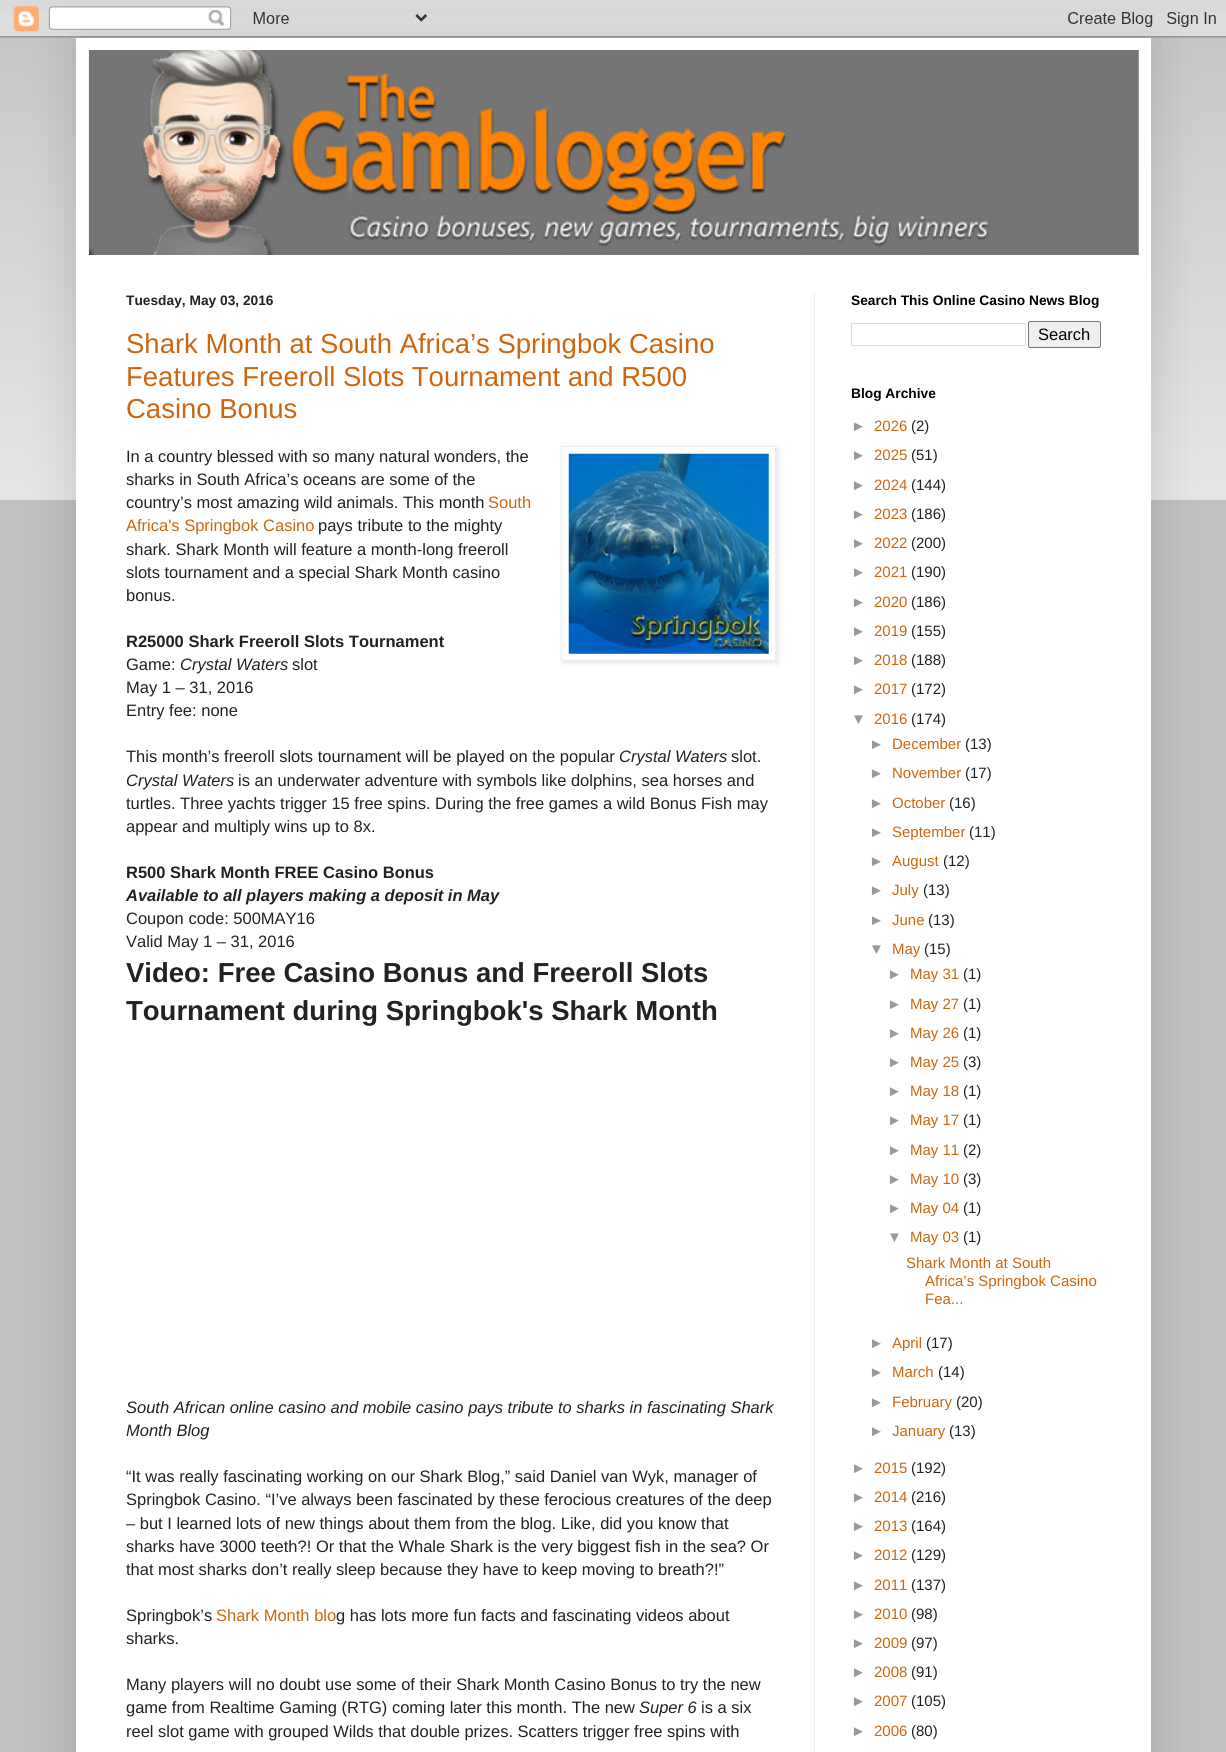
import math
import cairo



def rounded_rect(context, x, y, w, h, r):
    context.new_sub_path()
    for i, (u, v) in enumerate([(x + w - r, y + h - r), (x + r, y + h - r), (x + r, y + r), (x + w - r, y + r)]):
        context.arc(u, v, r, i * math.pi / 2, (i + 1) * math.pi / 2)
    context.close_path()


def draw_shadow(context, x, y, w, h, r, blur, alpha):
    context.push_group_with_content(cairo.Content.ALPHA)
    context.set_operator(cairo.Operator.SOURCE)
    for i in range(15, -16, -2):
        e = blur * i / 6
        if min(w, h) + 2 * e > 0:
            context.set_source_rgba(0, 0, 0, alpha * math.erfc((i - 1) / 8.5) / 2)
            rounded_rect(context, x - e, y - e, w + 2 * e, h + 2 * e, max(0, min(r + e + blur * .6, min(w, h) / 2 + e)))
            context.fill()
    context.mask(context.pop_group())


def draw_image(context, path, x, y, w, h):
    context.save()
    context.set_source_surface(cairo.ImageSurface.create_from_png(path), x, y)
    context.rectangle(x, y, w, h)
    context.fill()
    context.restore()


def draw(context):
    context.set_source_rgb(193 / 255, 193 / 255, 193 / 255)
    context.paint()
    draw_image(context, "images/2.png", 0, 13, 1226, 487)
    context.set_source_rgb(0, 0, 0)
    draw_shadow(context, 76, 38, 1075, 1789, 0, 25, 0.15)
    draw_image(context, "images/1.png", 0, 0, 1226, 38)
    context.set_source_rgb(1, 1, 1)
    context.rectangle(76, 38, 1075, 1714)
    context.fill()
    draw_image(context, "images/3.png", 1138, 50, 1, 159)
    draw_image(context, "images/4.png", 88, 50, 1051, 205)
    context.set_source_rgb(238 / 255, 238 / 255, 238 / 255)
    context.rectangle(814, 293, 1, 1459)
    context.fill()
    context.set_source_rgb(0, 0, 0)
    draw_shadow(context, 563, 448, 215, 215, 0, 3, 0.1)
    context.set_source_rgb(1, 1, 1)
    context.rectangle(561.5, 446.5, 214, 214)
    context.fill_preserve()
    context.set_source_rgb(238 / 255, 238 / 255, 238 / 255)
    context.set_line_width(1)
    context.stroke()
    draw_image(context, "images/5.png", 568, 453, 201, 201)
    context.rectangle(851.5, 323.5, 174, 22)
    context.set_source_rgb(221 / 255, 221 / 255, 221 / 255)
    context.stroke()
    context.set_source_rgb(239 / 255, 239 / 255, 239 / 255)
    rounded_rect(context, 1028.5, 321.5, 72, 26, 2)
    context.fill_preserve()
    context.set_source_rgb(118 / 255, 118 / 255, 118 / 255)
    context.stroke()
    context.select_font_face("Liberation Sans", cairo.FontSlant.NORMAL, cairo.FontWeight.BOLD)
    context.set_font_size(13.75)
    context.set_source_rgb(34 / 255, 34 / 255, 34 / 255)
    context.move_to(126, 305)
    context.show_text("Tuesday, May 03, 2016")
    context.select_font_face("Liberation Sans")
    context.set_font_size(27.5)
    context.set_source_rgb(204 / 255, 102 / 255, 17 / 255)
    context.move_to(126, 353)
    context.show_text("Shark Month at South Africa’s Springbok Casino")
    context.move_to(126, 386)
    context.show_text("Features Freeroll Slots Tournament and R500")
    context.move_to(126, 418)
    context.show_text("Casino Bonus")
    context.set_font_size(16.5)
    context.set_source_rgb(34 / 255, 34 / 255, 34 / 255)
    context.move_to(126, 462)
    context.show_text("In a country blessed with so many natural wonders, the")
    context.move_to(126, 485)
    context.show_text("sharks in South Africa’s oceans are some of the")
    context.move_to(126, 508)
    context.show_text("country’s most amazing wild animals. This month")
    context.set_source_rgb(204 / 255, 102 / 255, 17 / 255)
    context.move_to(488, 508)
    context.show_text("South")
    context.move_to(126, 531)
    context.show_text("Africa's Springbok Casino")
    context.set_source_rgb(34 / 255, 34 / 255, 34 / 255)
    context.move_to(318, 531)
    context.show_text("pays tribute to the mighty")
    context.move_to(126, 555)
    context.show_text("shark. Shark Month will feature a month-long freeroll")
    context.move_to(126, 578)
    context.show_text("slots tournament and a special Shark Month casino")
    context.move_to(126, 601)
    context.show_text("bonus.")
    context.select_font_face("Liberation Sans", cairo.FontSlant.NORMAL, cairo.FontWeight.BOLD)
    context.move_to(126, 647)
    context.show_text("R25000 Shark Freeroll Slots Tournament")
    context.select_font_face("Liberation Sans")
    context.move_to(126, 670)
    context.show_text("Game:")
    context.select_font_face("Liberation Sans", cairo.FontSlant.ITALIC)
    context.move_to(180, 670)
    context.show_text("Crystal Waters")
    context.select_font_face("Liberation Sans")
    context.move_to(292, 670)
    context.show_text("slot")
    context.move_to(126, 693)
    context.show_text("May 1 – 31, 2016")
    context.move_to(126, 716)
    context.show_text("Entry fee: none")
    context.move_to(126, 762)
    context.show_text("This month’s freeroll slots tournament will be played on the popular")
    context.select_font_face("Liberation Sans", cairo.FontSlant.ITALIC)
    context.move_to(619, 762)
    context.show_text("Crystal Waters")
    context.select_font_face("Liberation Sans")
    context.move_to(731, 762)
    context.show_text("slot.")
    context.select_font_face("Liberation Sans", cairo.FontSlant.ITALIC)
    context.move_to(126, 786)
    context.show_text("Crystal Waters")
    context.select_font_face("Liberation Sans")
    context.move_to(238, 786)
    context.show_text("is an underwater adventure with symbols like dolphins, sea horses and")
    context.move_to(126, 809)
    context.show_text("turtles. Three yachts trigger 15 free spins. During the free games a wild Bonus Fish may")
    context.move_to(126, 832)
    context.show_text("appear and multiply wins up to 8x.")
    context.select_font_face("Liberation Sans", cairo.FontSlant.NORMAL, cairo.FontWeight.BOLD)
    context.move_to(126, 878)
    context.show_text("R500 Shark Month FREE Casino Bonus")
    context.select_font_face("Liberation Sans", cairo.FontSlant.ITALIC, cairo.FontWeight.BOLD)
    context.move_to(126, 901)
    context.show_text("Available to all players making a deposit in May")
    context.select_font_face("Liberation Sans")
    context.move_to(126, 924)
    context.show_text("Coupon code: 500MAY16")
    context.move_to(126, 947)
    context.show_text("Valid May 1 – 31, 2016")
    context.select_font_face("Liberation Sans", cairo.FontSlant.NORMAL, cairo.FontWeight.BOLD)
    context.set_font_size(27.5)
    context.move_to(126, 982)
    context.show_text("Video: Free Casino Bonus and Freeroll Slots")
    context.move_to(126, 1020)
    context.show_text("Tournament during Springbok's Shark Month")
    context.select_font_face("Liberation Sans", cairo.FontSlant.ITALIC)
    context.set_font_size(16.5)
    context.move_to(126, 1413)
    context.show_text("South African online casino and mobile casino pays tribute to sharks in fascinating Shark")
    context.move_to(126, 1436)
    context.show_text("Month Blog")
    context.select_font_face("Liberation Sans")
    context.move_to(126, 1482)
    context.show_text("“It was really fascinating working on our Shark Blog,” said Daniel van Wyk, manager of")
    context.move_to(126, 1505)
    context.show_text("Springbok Casino. “I’ve always been fascinated by these ferocious creatures of the deep")
    context.move_to(126, 1529)
    context.show_text("– but I learned lots of new things about them from the blog. Like, did you know that")
    context.move_to(126, 1552)
    context.show_text("sharks have 3000 teeth?! Or that the Whale Shark is the very biggest fish in the sea? Or")
    context.move_to(126, 1575)
    context.show_text("that most sharks don’t really sleep because they have to keep moving to breath?!”")
    context.move_to(126, 1621)
    context.show_text("Springbok’s")
    context.set_source_rgb(204 / 255, 102 / 255, 17 / 255)
    context.move_to(216, 1621)
    context.show_text("Shark Month blo")
    context.set_source_rgb(34 / 255, 34 / 255, 34 / 255)
    context.move_to(336, 1621)
    context.show_text("g has lots more fun facts and fascinating videos about")
    context.move_to(126, 1644)
    context.show_text("sharks.")
    context.move_to(126, 1690)
    context.show_text("Many players will no doubt use some of their Shark Month Casino Bonus to try the new")
    context.move_to(126, 1713)
    context.show_text("game from Realtime Gaming (RTG) coming later this month. The new")
    context.select_font_face("Liberation Sans", cairo.FontSlant.ITALIC)
    context.move_to(639, 1713)
    context.show_text("Super 6")
    context.select_font_face("Liberation Sans")
    context.move_to(701, 1713)
    context.show_text("is a six")
    context.move_to(126, 1737)
    context.show_text("reel slot game with grouped Wilds that double prizes. Scatters trigger free spins with")
    context.select_font_face("Liberation Sans", cairo.FontSlant.NORMAL, cairo.FontWeight.BOLD)
    context.set_font_size(13.75)
    context.set_source_rgb(0, 0, 0)
    context.move_to(851, 305)
    context.show_text("Search This Online Casino News Blog")
    context.select_font_face("Liberation Sans")
    context.set_font_size(16.5)
    context.move_to(1038, 340)
    context.show_text("Search")
    context.select_font_face("Liberation Sans", cairo.FontSlant.NORMAL, cairo.FontWeight.BOLD)
    context.set_font_size(13.75)
    context.move_to(851, 398)
    context.show_text("Blog Archive")
    context.select_font_face("Liberation Sans")
    context.set_font_size(15)
    context.set_source_rgb(153 / 255, 153 / 255, 153 / 255)
    context.move_to(851, 431)
    context.show_text("►")
    context.set_source_rgb(204 / 255, 102 / 255, 17 / 255)
    context.move_to(874, 431)
    context.show_text("2026")
    context.set_source_rgb(34 / 255, 34 / 255, 34 / 255)
    context.move_to(911, 431)
    context.show_text("(2)")
    context.set_source_rgb(153 / 255, 153 / 255, 153 / 255)
    context.move_to(851, 460)
    context.show_text("►")
    context.set_source_rgb(204 / 255, 102 / 255, 17 / 255)
    context.move_to(874, 460)
    context.show_text("2025")
    context.set_source_rgb(34 / 255, 34 / 255, 34 / 255)
    context.move_to(911, 460)
    context.show_text("(51)")
    context.set_source_rgb(153 / 255, 153 / 255, 153 / 255)
    context.move_to(851, 490)
    context.show_text("►")
    context.set_source_rgb(204 / 255, 102 / 255, 17 / 255)
    context.move_to(874, 490)
    context.show_text("2024")
    context.set_source_rgb(34 / 255, 34 / 255, 34 / 255)
    context.move_to(911, 490)
    context.show_text("(144)")
    context.set_source_rgb(153 / 255, 153 / 255, 153 / 255)
    context.move_to(851, 519)
    context.show_text("►")
    context.set_source_rgb(204 / 255, 102 / 255, 17 / 255)
    context.move_to(874, 519)
    context.show_text("2023")
    context.set_source_rgb(34 / 255, 34 / 255, 34 / 255)
    context.move_to(911, 519)
    context.show_text("(186)")
    context.set_source_rgb(153 / 255, 153 / 255, 153 / 255)
    context.move_to(851, 548)
    context.show_text("►")
    context.set_source_rgb(204 / 255, 102 / 255, 17 / 255)
    context.move_to(874, 548)
    context.show_text("2022")
    context.set_source_rgb(34 / 255, 34 / 255, 34 / 255)
    context.move_to(911, 548)
    context.show_text("(200)")
    context.set_source_rgb(153 / 255, 153 / 255, 153 / 255)
    context.move_to(851, 577)
    context.show_text("►")
    context.set_source_rgb(204 / 255, 102 / 255, 17 / 255)
    context.move_to(874, 577)
    context.show_text("2021")
    context.set_source_rgb(34 / 255, 34 / 255, 34 / 255)
    context.move_to(911, 577)
    context.show_text("(190)")
    context.set_source_rgb(153 / 255, 153 / 255, 153 / 255)
    context.move_to(851, 607)
    context.show_text("►")
    context.set_source_rgb(204 / 255, 102 / 255, 17 / 255)
    context.move_to(874, 607)
    context.show_text("2020")
    context.set_source_rgb(34 / 255, 34 / 255, 34 / 255)
    context.move_to(911, 607)
    context.show_text("(186)")
    context.set_source_rgb(153 / 255, 153 / 255, 153 / 255)
    context.move_to(851, 636)
    context.show_text("►")
    context.set_source_rgb(204 / 255, 102 / 255, 17 / 255)
    context.move_to(874, 636)
    context.show_text("2019")
    context.set_source_rgb(34 / 255, 34 / 255, 34 / 255)
    context.move_to(911, 636)
    context.show_text("(155)")
    context.set_source_rgb(153 / 255, 153 / 255, 153 / 255)
    context.move_to(851, 665)
    context.show_text("►")
    context.set_source_rgb(204 / 255, 102 / 255, 17 / 255)
    context.move_to(874, 665)
    context.show_text("2018")
    context.set_source_rgb(34 / 255, 34 / 255, 34 / 255)
    context.move_to(911, 665)
    context.show_text("(188)")
    context.set_source_rgb(153 / 255, 153 / 255, 153 / 255)
    context.move_to(851, 694)
    context.show_text("►")
    context.set_source_rgb(204 / 255, 102 / 255, 17 / 255)
    context.move_to(874, 694)
    context.show_text("2017")
    context.set_source_rgb(34 / 255, 34 / 255, 34 / 255)
    context.move_to(911, 694)
    context.show_text("(172)")
    context.set_source_rgb(153 / 255, 153 / 255, 153 / 255)
    context.move_to(851, 724)
    context.show_text("▼")
    context.set_source_rgb(204 / 255, 102 / 255, 17 / 255)
    context.move_to(874, 724)
    context.show_text("2016")
    context.set_source_rgb(34 / 255, 34 / 255, 34 / 255)
    context.move_to(911, 724)
    context.show_text("(174)")
    context.set_source_rgb(153 / 255, 153 / 255, 153 / 255)
    context.move_to(869, 749)
    context.show_text("►")
    context.set_source_rgb(204 / 255, 102 / 255, 17 / 255)
    context.move_to(892, 749)
    context.show_text("December")
    context.set_source_rgb(34 / 255, 34 / 255, 34 / 255)
    context.move_to(965, 749)
    context.show_text("(13)")
    context.set_source_rgb(153 / 255, 153 / 255, 153 / 255)
    context.move_to(869, 778)
    context.show_text("►")
    context.set_source_rgb(204 / 255, 102 / 255, 17 / 255)
    context.move_to(892, 778)
    context.show_text("November")
    context.set_source_rgb(34 / 255, 34 / 255, 34 / 255)
    context.move_to(965, 778)
    context.show_text("(17)")
    context.set_source_rgb(153 / 255, 153 / 255, 153 / 255)
    context.move_to(869, 808)
    context.show_text("►")
    context.set_source_rgb(204 / 255, 102 / 255, 17 / 255)
    context.move_to(892, 808)
    context.show_text("October")
    context.set_source_rgb(34 / 255, 34 / 255, 34 / 255)
    context.move_to(949, 808)
    context.show_text("(16)")
    context.set_source_rgb(153 / 255, 153 / 255, 153 / 255)
    context.move_to(869, 837)
    context.show_text("►")
    context.set_source_rgb(204 / 255, 102 / 255, 17 / 255)
    context.move_to(892, 837)
    context.show_text("September")
    context.set_source_rgb(34 / 255, 34 / 255, 34 / 255)
    context.move_to(969, 837)
    context.show_text("(11)")
    context.set_source_rgb(153 / 255, 153 / 255, 153 / 255)
    context.move_to(869, 866)
    context.show_text("►")
    context.set_source_rgb(204 / 255, 102 / 255, 17 / 255)
    context.move_to(892, 866)
    context.show_text("August")
    context.set_source_rgb(34 / 255, 34 / 255, 34 / 255)
    context.move_to(943, 866)
    context.show_text("(12)")
    context.set_source_rgb(153 / 255, 153 / 255, 153 / 255)
    context.move_to(869, 895)
    context.show_text("►")
    context.set_source_rgb(204 / 255, 102 / 255, 17 / 255)
    context.move_to(892, 895)
    context.show_text("July")
    context.set_source_rgb(34 / 255, 34 / 255, 34 / 255)
    context.move_to(923, 895)
    context.show_text("(13)")
    context.set_source_rgb(153 / 255, 153 / 255, 153 / 255)
    context.move_to(869, 925)
    context.show_text("►")
    context.set_source_rgb(204 / 255, 102 / 255, 17 / 255)
    context.move_to(892, 925)
    context.show_text("June")
    context.set_source_rgb(34 / 255, 34 / 255, 34 / 255)
    context.move_to(928, 925)
    context.show_text("(13)")
    context.set_source_rgb(153 / 255, 153 / 255, 153 / 255)
    context.move_to(869, 954)
    context.show_text("▼")
    context.set_source_rgb(204 / 255, 102 / 255, 17 / 255)
    context.move_to(892, 954)
    context.show_text("May")
    context.set_source_rgb(34 / 255, 34 / 255, 34 / 255)
    context.move_to(924, 954)
    context.show_text("(15)")
    context.set_source_rgb(153 / 255, 153 / 255, 153 / 255)
    context.move_to(887, 979)
    context.show_text("►")
    context.set_source_rgb(204 / 255, 102 / 255, 17 / 255)
    context.move_to(910, 979)
    context.show_text("May 31")
    context.set_source_rgb(34 / 255, 34 / 255, 34 / 255)
    context.move_to(963, 979)
    context.show_text("(1)")
    context.set_source_rgb(153 / 255, 153 / 255, 153 / 255)
    context.move_to(887, 1009)
    context.show_text("►")
    context.set_source_rgb(204 / 255, 102 / 255, 17 / 255)
    context.move_to(910, 1009)
    context.show_text("May 27")
    context.set_source_rgb(34 / 255, 34 / 255, 34 / 255)
    context.move_to(963, 1009)
    context.show_text("(1)")
    context.set_source_rgb(153 / 255, 153 / 255, 153 / 255)
    context.move_to(887, 1038)
    context.show_text("►")
    context.set_source_rgb(204 / 255, 102 / 255, 17 / 255)
    context.move_to(910, 1038)
    context.show_text("May 26")
    context.set_source_rgb(34 / 255, 34 / 255, 34 / 255)
    context.move_to(963, 1038)
    context.show_text("(1)")
    context.set_source_rgb(153 / 255, 153 / 255, 153 / 255)
    context.move_to(887, 1067)
    context.show_text("►")
    context.set_source_rgb(204 / 255, 102 / 255, 17 / 255)
    context.move_to(910, 1067)
    context.show_text("May 25")
    context.set_source_rgb(34 / 255, 34 / 255, 34 / 255)
    context.move_to(963, 1067)
    context.show_text("(3)")
    context.set_source_rgb(153 / 255, 153 / 255, 153 / 255)
    context.move_to(887, 1096)
    context.show_text("►")
    context.set_source_rgb(204 / 255, 102 / 255, 17 / 255)
    context.move_to(910, 1096)
    context.show_text("May 18")
    context.set_source_rgb(34 / 255, 34 / 255, 34 / 255)
    context.move_to(963, 1096)
    context.show_text("(1)")
    context.set_source_rgb(153 / 255, 153 / 255, 153 / 255)
    context.move_to(887, 1125)
    context.show_text("►")
    context.set_source_rgb(204 / 255, 102 / 255, 17 / 255)
    context.move_to(910, 1125)
    context.show_text("May 17")
    context.set_source_rgb(34 / 255, 34 / 255, 34 / 255)
    context.move_to(963, 1125)
    context.show_text("(1)")
    context.set_source_rgb(153 / 255, 153 / 255, 153 / 255)
    context.move_to(887, 1155)
    context.show_text("►")
    context.set_source_rgb(204 / 255, 102 / 255, 17 / 255)
    context.move_to(910, 1155)
    context.show_text("May 11")
    context.set_source_rgb(34 / 255, 34 / 255, 34 / 255)
    context.move_to(963, 1155)
    context.show_text("(2)")
    context.set_source_rgb(153 / 255, 153 / 255, 153 / 255)
    context.move_to(887, 1184)
    context.show_text("►")
    context.set_source_rgb(204 / 255, 102 / 255, 17 / 255)
    context.move_to(910, 1184)
    context.show_text("May 10")
    context.set_source_rgb(34 / 255, 34 / 255, 34 / 255)
    context.move_to(963, 1184)
    context.show_text("(3)")
    context.set_source_rgb(153 / 255, 153 / 255, 153 / 255)
    context.move_to(887, 1213)
    context.show_text("►")
    context.set_source_rgb(204 / 255, 102 / 255, 17 / 255)
    context.move_to(910, 1213)
    context.show_text("May 04")
    context.set_source_rgb(34 / 255, 34 / 255, 34 / 255)
    context.move_to(963, 1213)
    context.show_text("(1)")
    context.set_source_rgb(153 / 255, 153 / 255, 153 / 255)
    context.move_to(887, 1242)
    context.show_text("▼")
    context.set_source_rgb(204 / 255, 102 / 255, 17 / 255)
    context.move_to(910, 1242)
    context.show_text("May 03")
    context.set_source_rgb(34 / 255, 34 / 255, 34 / 255)
    context.move_to(963, 1242)
    context.show_text("(1)")
    context.set_source_rgb(204 / 255, 102 / 255, 17 / 255)
    context.move_to(906, 1268)
    context.show_text("Shark Month at South")
    context.move_to(925, 1286)
    context.show_text("Africa’s Springbok Casino")
    context.move_to(925, 1304)
    context.show_text("Fea...")
    context.set_source_rgb(153 / 255, 153 / 255, 153 / 255)
    context.move_to(869, 1348)
    context.show_text("►")
    context.set_source_rgb(204 / 255, 102 / 255, 17 / 255)
    context.move_to(892, 1348)
    context.show_text("April")
    context.set_source_rgb(34 / 255, 34 / 255, 34 / 255)
    context.move_to(926, 1348)
    context.show_text("(17)")
    context.set_source_rgb(153 / 255, 153 / 255, 153 / 255)
    context.move_to(869, 1377)
    context.show_text("►")
    context.set_source_rgb(204 / 255, 102 / 255, 17 / 255)
    context.move_to(892, 1377)
    context.show_text("March")
    context.set_source_rgb(34 / 255, 34 / 255, 34 / 255)
    context.move_to(938, 1377)
    context.show_text("(14)")
    context.set_source_rgb(153 / 255, 153 / 255, 153 / 255)
    context.move_to(869, 1407)
    context.show_text("►")
    context.set_source_rgb(204 / 255, 102 / 255, 17 / 255)
    context.move_to(892, 1407)
    context.show_text("February")
    context.set_source_rgb(34 / 255, 34 / 255, 34 / 255)
    context.move_to(956, 1407)
    context.show_text("(20)")
    context.set_source_rgb(153 / 255, 153 / 255, 153 / 255)
    context.move_to(869, 1436)
    context.show_text("►")
    context.set_source_rgb(204 / 255, 102 / 255, 17 / 255)
    context.move_to(892, 1436)
    context.show_text("January")
    context.set_source_rgb(34 / 255, 34 / 255, 34 / 255)
    context.move_to(949, 1436)
    context.show_text("(13)")
    context.set_source_rgb(153 / 255, 153 / 255, 153 / 255)
    context.move_to(851, 1473)
    context.show_text("►")
    context.set_source_rgb(204 / 255, 102 / 255, 17 / 255)
    context.move_to(874, 1473)
    context.show_text("2015")
    context.set_source_rgb(34 / 255, 34 / 255, 34 / 255)
    context.move_to(911, 1473)
    context.show_text("(192)")
    context.set_source_rgb(153 / 255, 153 / 255, 153 / 255)
    context.move_to(851, 1502)
    context.show_text("►")
    context.set_source_rgb(204 / 255, 102 / 255, 17 / 255)
    context.move_to(874, 1502)
    context.show_text("2014")
    context.set_source_rgb(34 / 255, 34 / 255, 34 / 255)
    context.move_to(911, 1502)
    context.show_text("(216)")
    context.set_source_rgb(153 / 255, 153 / 255, 153 / 255)
    context.move_to(851, 1531)
    context.show_text("►")
    context.set_source_rgb(204 / 255, 102 / 255, 17 / 255)
    context.move_to(874, 1531)
    context.show_text("2013")
    context.set_source_rgb(34 / 255, 34 / 255, 34 / 255)
    context.move_to(911, 1531)
    context.show_text("(164)")
    context.set_source_rgb(153 / 255, 153 / 255, 153 / 255)
    context.move_to(851, 1560)
    context.show_text("►")
    context.set_source_rgb(204 / 255, 102 / 255, 17 / 255)
    context.move_to(874, 1560)
    context.show_text("2012")
    context.set_source_rgb(34 / 255, 34 / 255, 34 / 255)
    context.move_to(911, 1560)
    context.show_text("(129)")
    context.set_source_rgb(153 / 255, 153 / 255, 153 / 255)
    context.move_to(851, 1590)
    context.show_text("►")
    context.set_source_rgb(204 / 255, 102 / 255, 17 / 255)
    context.move_to(874, 1590)
    context.show_text("2011")
    context.set_source_rgb(34 / 255, 34 / 255, 34 / 255)
    context.move_to(911, 1590)
    context.show_text("(137)")
    context.set_source_rgb(153 / 255, 153 / 255, 153 / 255)
    context.move_to(851, 1619)
    context.show_text("►")
    context.set_source_rgb(204 / 255, 102 / 255, 17 / 255)
    context.move_to(874, 1619)
    context.show_text("2010")
    context.set_source_rgb(34 / 255, 34 / 255, 34 / 255)
    context.move_to(911, 1619)
    context.show_text("(98)")
    context.set_source_rgb(153 / 255, 153 / 255, 153 / 255)
    context.move_to(851, 1648)
    context.show_text("►")
    context.set_source_rgb(204 / 255, 102 / 255, 17 / 255)
    context.move_to(874, 1648)
    context.show_text("2009")
    context.set_source_rgb(34 / 255, 34 / 255, 34 / 255)
    context.move_to(911, 1648)
    context.show_text("(97)")
    context.set_source_rgb(153 / 255, 153 / 255, 153 / 255)
    context.move_to(851, 1677)
    context.show_text("►")
    context.set_source_rgb(204 / 255, 102 / 255, 17 / 255)
    context.move_to(874, 1677)
    context.show_text("2008")
    context.set_source_rgb(34 / 255, 34 / 255, 34 / 255)
    context.move_to(911, 1677)
    context.show_text("(91)")
    context.set_source_rgb(153 / 255, 153 / 255, 153 / 255)
    context.move_to(851, 1706)
    context.show_text("►")
    context.set_source_rgb(204 / 255, 102 / 255, 17 / 255)
    context.move_to(874, 1706)
    context.show_text("2007")
    context.set_source_rgb(34 / 255, 34 / 255, 34 / 255)
    context.move_to(911, 1706)
    context.show_text("(105)")
    context.set_source_rgb(153 / 255, 153 / 255, 153 / 255)
    context.move_to(851, 1736)
    context.show_text("►")
    context.set_source_rgb(204 / 255, 102 / 255, 17 / 255)
    context.move_to(874, 1736)
    context.show_text("2006")
    context.set_source_rgb(34 / 255, 34 / 255, 34 / 255)
    context.move_to(911, 1736)
    context.show_text("(80)")


surface = cairo.ImageSurface(cairo.Format.RGB24, 1226, 1752)
context = cairo.Context(surface)
options = cairo.FontOptions()
options.set_hint_metrics(cairo.HintMetrics.OFF)
options.set_hint_style(cairo.HintStyle.NONE)
context.set_font_options(options)
context.set_miter_limit(4)
draw(context)
surface.write_to_png("out.png")
